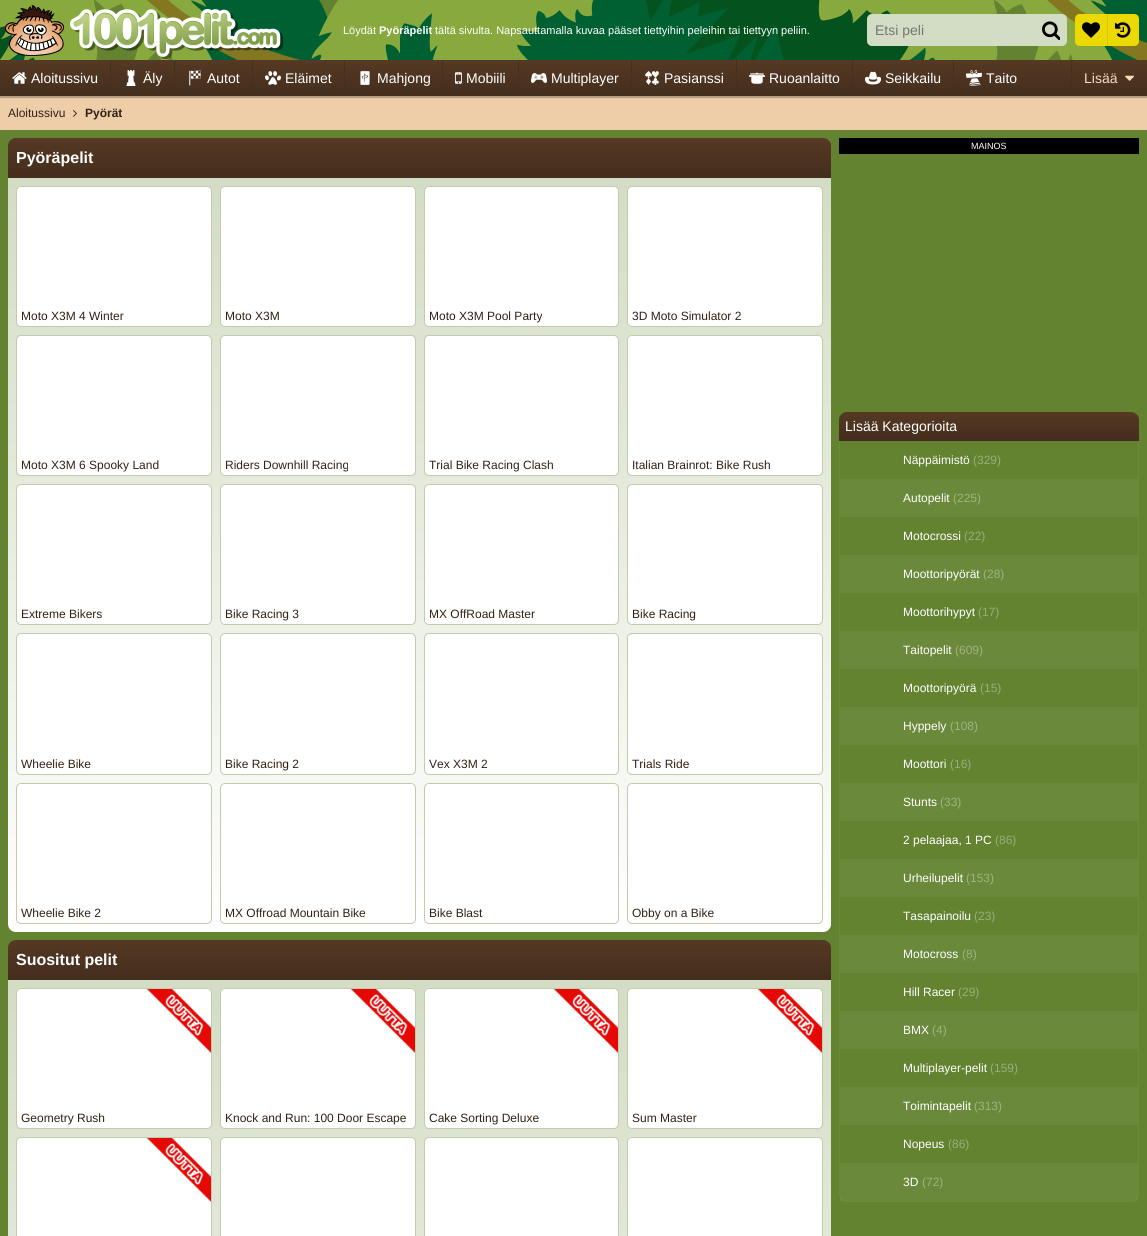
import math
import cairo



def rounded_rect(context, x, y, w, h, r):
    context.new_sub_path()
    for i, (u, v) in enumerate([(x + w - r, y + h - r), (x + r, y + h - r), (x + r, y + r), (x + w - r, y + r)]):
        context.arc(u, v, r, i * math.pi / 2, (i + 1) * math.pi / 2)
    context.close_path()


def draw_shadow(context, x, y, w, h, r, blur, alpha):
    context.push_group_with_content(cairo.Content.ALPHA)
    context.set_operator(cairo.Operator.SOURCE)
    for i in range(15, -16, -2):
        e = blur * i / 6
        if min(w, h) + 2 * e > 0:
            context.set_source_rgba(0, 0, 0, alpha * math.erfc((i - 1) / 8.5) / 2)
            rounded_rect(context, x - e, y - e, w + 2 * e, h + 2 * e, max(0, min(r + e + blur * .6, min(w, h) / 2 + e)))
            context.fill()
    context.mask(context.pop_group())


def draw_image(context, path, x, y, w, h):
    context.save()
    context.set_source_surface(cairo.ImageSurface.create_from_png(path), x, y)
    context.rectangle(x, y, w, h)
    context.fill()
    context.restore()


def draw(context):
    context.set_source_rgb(99 / 255, 131 / 255, 49 / 255)
    context.paint()
    context.set_source_rgb(237 / 255, 206 / 255, 169 / 255)
    context.rectangle(0, 96, 1147, 34)
    context.fill()
    context.set_source_rgb(0, 0, 0)
    draw_shadow(context, -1, 60, 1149, 38, 0, 0.5, 0.25)
    context.set_source_rgb(99 / 255, 131 / 255, 49 / 255)
    context.rectangle(93, 59, 980, 1)
    context.fill()
    draw_image(context, "images/1.png", 0, 0, 1147, 60)
    draw_image(context, "images/2.png", 5, 5, 278, 54)
    context.set_source_rgb(211 / 255, 220 / 255, 196 / 255)
    rounded_rect(context, 867, 14, 200, 32, 5)
    context.fill()
    draw_image(context, "images/3.png", 1042, 21, 18, 19)
    context.set_source_rgb(236 / 255, 217 / 255, 1 / 255)
    context.new_path()
    context.move_to(1080, 14)
    context.line_to(1107, 14)
    context.line_to(1107, 46)
    context.line_to(1080, 46)
    context.curve_to(1077, 46, 1075, 44, 1075, 41)
    context.line_to(1075, 19)
    context.curve_to(1075, 16, 1077, 14, 1080, 14)
    context.close_path()
    context.fill()
    draw_image(context, "images/4.png", 1082, 22, 18, 16)
    context.new_path()
    context.move_to(1107, 14)
    context.line_to(1134, 14)
    context.curve_to(1137, 14, 1139, 16, 1139, 19)
    context.line_to(1139, 41)
    context.curve_to(1139, 44, 1137, 46, 1134, 46)
    context.line_to(1107, 46)
    context.close_path()
    context.fill()
    context.set_source_rgb(216 / 255, 198 / 255, 1 / 255)
    context.new_path()
    context.move_to(1107, 14)
    context.line_to(1107, 46)
    context.line_to(1108, 45)
    context.line_to(1108, 15)
    context.close_path()
    context.fill()
    draw_image(context, "images/5.png", 1115, 22, 16, 16)
    gradient = cairo.LinearGradient(574, 60, 574, 96)
    gradient.add_color_stop_rgba(0, 85 / 255, 57 / 255, 36 / 255, 1)
    gradient.add_color_stop_rgba(1, 68 / 255, 46 / 255, 29 / 255, 1)
    context.set_source(gradient)
    context.rectangle(0, 60, 1147, 36)
    context.fill()
    draw_image(context, "images/6.png", 12, 72, 15, 12)
    context.set_source_rgb(70 / 255, 47 / 255, 30 / 255)
    context.rectangle(110, 60, 1, 26)
    context.fill()
    draw_image(context, "images/7.png", 126, 70, 10, 16)
    context.rectangle(174, 60, 1, 26)
    context.fill()
    draw_image(context, "images/8.png", 189, 70, 12, 16)
    context.rectangle(252, 60, 1, 26)
    context.fill()
    draw_image(context, "images/9.png", 265, 71, 16, 14)
    context.rectangle(344, 60, 1, 26)
    context.fill()
    draw_image(context, "images/10.png", 360, 71, 10, 14)
    context.rectangle(442, 60, 1, 26)
    context.fill()
    draw_image(context, "images/11.png", 455, 72, 7, 12)
    context.rectangle(518, 60, 1, 26)
    context.fill()
    draw_image(context, "images/12.png", 531, 73, 16, 10)
    context.rectangle(631, 60, 1, 26)
    context.fill()
    draw_image(context, "images/13.png", 645, 71, 14, 14)
    context.rectangle(736, 60, 1, 26)
    context.fill()
    draw_image(context, "images/14.png", 749, 72, 16, 12)
    context.rectangle(852, 60, 1, 26)
    context.fill()
    draw_image(context, "images/15.png", 865, 71, 16, 14)
    context.rectangle(953, 60, 1, 26)
    context.fill()
    draw_image(context, "images/16.png", 966, 70, 16, 16)
    context.new_path()
    context.move_to(1071, 96)
    context.line_to(1071, 60)
    context.line_to(1072, 61)
    context.line_to(1072, 95)
    context.close_path()
    context.fill()
    draw_image(context, "images/17.png", 1125, 75, 9, 6)
    draw_image(context, "images/18.png", 73, 110, 4, 7)
    context.set_source_rgb(85 / 255, 57 / 255, 36 / 255)
    context.new_path()
    context.move_to(16, 138)
    context.line_to(823, 138)
    context.curve_to(827.5, 138, 831, 141.5, 831, 146)
    context.line_to(831, 178)
    context.line_to(8, 178)
    context.line_to(8, 146)
    context.curve_to(8, 141.5, 11.5, 138, 16, 138)
    context.close_path()
    context.fill()
    gradient = cairo.LinearGradient(420, 138, 420, 178)
    gradient.add_color_stop_rgba(0, 0, 0, 0, 0)
    gradient.add_color_stop_rgba(1, 0, 0, 0, 0.2)
    context.set_source(gradient)
    context.rectangle(8, 142, 823, 36)
    context.fill()
    gradient = cairo.LinearGradient(419, 178, 420, 932)
    gradient.add_color_stop_rgba(0, 211 / 255, 220 / 255, 196 / 255, 1)
    gradient.add_color_stop_rgba(1, 1, 1, 1, 1)
    context.set_source(gradient)
    context.new_path()
    context.move_to(8, 178)
    context.line_to(831, 178)
    context.line_to(831, 924)
    context.curve_to(831, 928.5, 827.5, 932, 823, 932)
    context.line_to(16, 932)
    context.curve_to(11.5, 932, 8, 928.5, 8, 924)
    context.close_path()
    context.fill()
    context.set_source_rgb(1, 1, 1)
    rounded_rect(context, 16.5, 186.5, 195, 140, 4.5)
    context.fill_preserve()
    context.set_source_rgb(192 / 255, 205 / 255, 170 / 255)
    context.set_line_width(1)
    context.stroke()
    context.set_source_rgb(1, 1, 1)
    rounded_rect(context, 220.5, 186.5, 195, 140, 4.5)
    context.fill_preserve()
    context.set_source_rgb(192 / 255, 205 / 255, 170 / 255)
    context.stroke()
    context.set_source_rgb(1, 1, 1)
    rounded_rect(context, 424.5, 186.5, 194, 140, 4.5)
    context.fill_preserve()
    context.set_source_rgb(192 / 255, 205 / 255, 170 / 255)
    context.stroke()
    context.set_source_rgb(1, 1, 1)
    rounded_rect(context, 627.5, 186.5, 195, 140, 4.5)
    context.fill_preserve()
    context.set_source_rgb(192 / 255, 205 / 255, 170 / 255)
    context.stroke()
    context.set_source_rgb(1, 1, 1)
    rounded_rect(context, 16.5, 335.5, 195, 140, 4.5)
    context.fill_preserve()
    context.set_source_rgb(192 / 255, 205 / 255, 170 / 255)
    context.stroke()
    context.set_source_rgb(1, 1, 1)
    rounded_rect(context, 220.5, 335.5, 195, 140, 4.5)
    context.fill_preserve()
    context.set_source_rgb(192 / 255, 205 / 255, 170 / 255)
    context.stroke()
    context.set_source_rgb(1, 1, 1)
    rounded_rect(context, 424.5, 335.5, 194, 140, 4.5)
    context.fill_preserve()
    context.set_source_rgb(192 / 255, 205 / 255, 170 / 255)
    context.stroke()
    context.set_source_rgb(1, 1, 1)
    rounded_rect(context, 627.5, 335.5, 195, 140, 4.5)
    context.fill_preserve()
    context.set_source_rgb(192 / 255, 205 / 255, 170 / 255)
    context.stroke()
    context.set_source_rgb(1, 1, 1)
    rounded_rect(context, 16.5, 484.5, 195, 140, 4.5)
    context.fill_preserve()
    context.set_source_rgb(192 / 255, 205 / 255, 170 / 255)
    context.stroke()
    context.set_source_rgb(1, 1, 1)
    rounded_rect(context, 220.5, 484.5, 195, 140, 4.5)
    context.fill_preserve()
    context.set_source_rgb(192 / 255, 205 / 255, 170 / 255)
    context.stroke()
    context.set_source_rgb(1, 1, 1)
    rounded_rect(context, 424.5, 484.5, 194, 140, 4.5)
    context.fill_preserve()
    context.set_source_rgb(192 / 255, 205 / 255, 170 / 255)
    context.stroke()
    context.set_source_rgb(1, 1, 1)
    rounded_rect(context, 627.5, 484.5, 195, 140, 4.5)
    context.fill_preserve()
    context.set_source_rgb(192 / 255, 205 / 255, 170 / 255)
    context.stroke()
    context.set_source_rgb(1, 1, 1)
    rounded_rect(context, 16.5, 633.5, 195, 141, 4.5)
    context.fill_preserve()
    context.set_source_rgb(192 / 255, 205 / 255, 170 / 255)
    context.stroke()
    context.set_source_rgb(1, 1, 1)
    rounded_rect(context, 220.5, 633.5, 195, 141, 4.5)
    context.fill_preserve()
    context.set_source_rgb(192 / 255, 205 / 255, 170 / 255)
    context.stroke()
    context.set_source_rgb(1, 1, 1)
    rounded_rect(context, 424.5, 633.5, 194, 141, 4.5)
    context.fill_preserve()
    context.set_source_rgb(192 / 255, 205 / 255, 170 / 255)
    context.stroke()
    context.set_source_rgb(1, 1, 1)
    rounded_rect(context, 627.5, 633.5, 195, 141, 4.5)
    context.fill_preserve()
    context.set_source_rgb(192 / 255, 205 / 255, 170 / 255)
    context.stroke()
    context.set_source_rgb(1, 1, 1)
    rounded_rect(context, 16.5, 783.5, 195, 140, 4.5)
    context.fill_preserve()
    context.set_source_rgb(192 / 255, 205 / 255, 170 / 255)
    context.stroke()
    context.set_source_rgb(1, 1, 1)
    rounded_rect(context, 220.5, 783.5, 195, 140, 4.5)
    context.fill_preserve()
    context.set_source_rgb(192 / 255, 205 / 255, 170 / 255)
    context.stroke()
    context.set_source_rgb(1, 1, 1)
    rounded_rect(context, 424.5, 783.5, 194, 140, 4.5)
    context.fill_preserve()
    context.set_source_rgb(192 / 255, 205 / 255, 170 / 255)
    context.stroke()
    context.set_source_rgb(1, 1, 1)
    rounded_rect(context, 627.5, 783.5, 195, 140, 4.5)
    context.fill_preserve()
    context.set_source_rgb(192 / 255, 205 / 255, 170 / 255)
    context.stroke()
    context.set_source_rgb(85 / 255, 57 / 255, 36 / 255)
    context.new_path()
    context.move_to(16, 940)
    context.line_to(823, 940)
    context.curve_to(827.5, 940, 831, 943.5, 831, 948)
    context.line_to(831, 980)
    context.line_to(8, 980)
    context.line_to(8, 948)
    context.curve_to(8, 943.5, 11.5, 940, 16, 940)
    context.close_path()
    context.fill()
    gradient = cairo.LinearGradient(420, 940, 420, 980)
    gradient.add_color_stop_rgba(0, 0, 0, 0, 0)
    gradient.add_color_stop_rgba(1, 0, 0, 0, 0.2)
    context.set_source(gradient)
    context.rectangle(8, 944, 823, 36)
    context.fill()
    gradient = cairo.LinearGradient(419, 980, 420, 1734)
    gradient.add_color_stop_rgba(0, 211 / 255, 220 / 255, 196 / 255, 1)
    gradient.add_color_stop_rgba(1, 1, 1, 1, 1)
    context.set_source(gradient)
    context.rectangle(8, 980, 823, 256)
    context.fill()
    context.set_source_rgb(1, 1, 1)
    rounded_rect(context, 16.5, 988.5, 195, 140, 4.5)
    context.fill_preserve()
    context.set_source_rgb(192 / 255, 205 / 255, 170 / 255)
    context.stroke()
    draw_image(context, "images/19.png", 146, 989, 65, 64)
    context.set_source_rgb(1, 1, 1)
    rounded_rect(context, 220.5, 988.5, 195, 140, 4.5)
    context.fill_preserve()
    context.set_source_rgb(192 / 255, 205 / 255, 170 / 255)
    context.stroke()
    draw_image(context, "images/19.png", 350, 989, 65, 64)
    context.set_source_rgb(1, 1, 1)
    rounded_rect(context, 424.5, 988.5, 194, 140, 4.5)
    context.fill_preserve()
    context.set_source_rgb(192 / 255, 205 / 255, 170 / 255)
    context.stroke()
    draw_image(context, "images/19.png", 553, 989, 65, 64)
    context.set_source_rgb(1, 1, 1)
    rounded_rect(context, 627.5, 988.5, 195, 140, 4.5)
    context.fill_preserve()
    context.set_source_rgb(192 / 255, 205 / 255, 170 / 255)
    context.stroke()
    draw_image(context, "images/20.png", 757, 989, 65, 64)
    context.set_source_rgb(1, 1, 1)
    rounded_rect(context, 16.5, 1137.5, 195, 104, 4.5)
    context.fill_preserve()
    context.set_source_rgb(192 / 255, 205 / 255, 170 / 255)
    context.stroke()
    draw_image(context, "images/21.png", 146, 1138, 65, 64)
    context.set_source_rgb(1, 1, 1)
    rounded_rect(context, 220.5, 1137.5, 195, 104, 4.5)
    context.fill_preserve()
    context.set_source_rgb(192 / 255, 205 / 255, 170 / 255)
    context.stroke()
    context.set_source_rgb(1, 1, 1)
    rounded_rect(context, 424.5, 1137.5, 194, 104, 4.5)
    context.fill_preserve()
    context.set_source_rgb(192 / 255, 205 / 255, 170 / 255)
    context.stroke()
    context.set_source_rgb(1, 1, 1)
    rounded_rect(context, 627.5, 1137.5, 195, 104, 4.5)
    context.fill_preserve()
    context.set_source_rgb(192 / 255, 205 / 255, 170 / 255)
    context.stroke()
    context.set_source_rgb(0, 0, 0)
    context.rectangle(839, 138, 300, 16)
    context.fill()
    context.set_source_rgb(85 / 255, 57 / 255, 36 / 255)
    context.new_path()
    context.move_to(847, 412)
    context.line_to(1131, 412)
    context.curve_to(1135.5, 412, 1139, 415.5, 1139, 420)
    context.line_to(1139, 441)
    context.line_to(839, 441)
    context.line_to(839, 420)
    context.curve_to(839, 415.5, 842.5, 412, 847, 412)
    context.close_path()
    context.fill()
    gradient = cairo.LinearGradient(989, 412, 989, 441)
    gradient.add_color_stop_rgba(0, 0, 0, 0, 0)
    gradient.add_color_stop_rgba(1, 0, 0, 0, 0.2)
    context.set_source(gradient)
    context.rectangle(839, 415, 300, 26)
    context.fill()
    context.set_source_rgb(107 / 255, 142 / 255, 53 / 255)
    context.set_fill_rule(cairo.FillRule.EVEN_ODD)
    context.new_path()
    context.move_to(839, 441)
    context.line_to(1139, 441)
    context.line_to(1139, 1194)
    context.curve_to(1139, 1198, 1135, 1202, 1131, 1202)
    context.line_to(847, 1202)
    context.curve_to(843, 1202, 839, 1198, 839, 1194)
    context.close_path()
    context.move_to(840, 441)
    context.line_to(1138, 441)
    context.line_to(1138, 1194)
    context.curve_to(1138, 1198, 1135, 1201, 1131, 1201)
    context.line_to(847, 1201)
    context.curve_to(843, 1201, 840, 1198, 840, 1194)
    context.close_path()
    context.fill()
    context.set_source_rgb(107 / 255, 137 / 255, 59 / 255)
    context.rectangle(840, 479, 298, 38)
    context.fill()
    context.rectangle(840, 555, 298, 38)
    context.fill()
    context.rectangle(840, 631, 298, 38)
    context.fill()
    context.rectangle(840, 707, 298, 38)
    context.fill()
    context.rectangle(840, 783, 298, 38)
    context.fill()
    context.rectangle(840, 859, 298, 38)
    context.fill()
    context.rectangle(840, 935, 298, 38)
    context.fill()
    context.rectangle(840, 1011, 298, 38)
    context.fill()
    context.rectangle(840, 1087, 298, 38)
    context.fill()
    context.set_source_rgba(1, 1, 1, 0.05)
    context.rectangle(840, 1163, 298, 38)
    context.fill()
    context.select_font_face("Liberation Sans")
    context.set_font_size(11)
    context.set_source_rgb(1, 1, 1)
    context.move_to(343, 34)
    context.show_text("Löydät")
    context.select_font_face("Liberation Sans", cairo.FontSlant.NORMAL, cairo.FontWeight.BOLD)
    context.move_to(379, 34)
    context.show_text("Pyöräpelit")
    context.select_font_face("Liberation Sans")
    context.move_to(435, 34)
    context.show_text("tältä sivulta. Napsauttamalla kuvaa pääset tiettyihin peleihin tai tiettyyn peliin.")
    context.set_font_size(14)
    context.set_source_rgb(117 / 255, 117 / 255, 117 / 255)
    context.move_to(875, 35)
    context.show_text("Etsi peli")
    context.set_source_rgb(1, 1, 1)
    context.move_to(31, 83)
    context.show_text("Aloitussivu")
    context.move_to(143, 83)
    context.show_text("Äly")
    context.move_to(207, 83)
    context.show_text("Autot")
    context.move_to(285, 83)
    context.show_text("Eläimet")
    context.move_to(377, 83)
    context.show_text("Mahjong")
    context.move_to(466, 83)
    context.show_text("Mobiili")
    context.move_to(551, 83)
    context.show_text("Multiplayer")
    context.move_to(664, 83)
    context.show_text("Pasianssi")
    context.move_to(769, 83)
    context.show_text("Ruoanlaitto")
    context.move_to(885, 83)
    context.show_text("Seikkailu")
    context.move_to(986, 83)
    context.show_text("Taito")
    context.set_source_rgb(247 / 255, 220 / 255, 188 / 255)
    context.move_to(1084, 83)
    context.show_text("Lisää")
    context.set_font_size(12)
    context.set_source_rgb(49 / 255, 33 / 255, 21 / 255)
    context.move_to(8, 117)
    context.show_text("Aloitussivu")
    context.select_font_face("Liberation Sans", cairo.FontSlant.NORMAL, cairo.FontWeight.BOLD)
    context.move_to(85, 117)
    context.show_text("Pyörät")
    context.set_font_size(16)
    context.set_source_rgb(1, 1, 1)
    context.move_to(16, 163)
    context.show_text("Pyöräpelit")
    context.select_font_face("Liberation Sans")
    context.set_font_size(12)
    context.set_source_rgb(49 / 255, 33 / 255, 21 / 255)
    context.move_to(21, 320)
    context.show_text("Moto X3M 4 Winter")
    context.move_to(225, 320)
    context.show_text("Moto X3M")
    context.move_to(429, 320)
    context.show_text("Moto X3M Pool Party")
    context.move_to(632, 320)
    context.show_text("3D Moto Simulator 2")
    context.move_to(21, 469)
    context.show_text("Moto X3M 6 Spooky Land")
    context.move_to(225, 469)
    context.show_text("Riders Downhill Racing")
    context.move_to(429, 469)
    context.show_text("Trial Bike Racing Clash")
    context.move_to(632, 469)
    context.show_text("Italian Brainrot: Bike Rush")
    context.move_to(21, 618)
    context.show_text("Extreme Bikers")
    context.move_to(225, 618)
    context.show_text("Bike Racing 3")
    context.move_to(429, 618)
    context.show_text("MX OffRoad Master")
    context.move_to(632, 618)
    context.show_text("Bike Racing")
    context.move_to(21, 768)
    context.show_text("Wheelie Bike")
    context.move_to(225, 768)
    context.show_text("Bike Racing 2")
    context.move_to(429, 768)
    context.show_text("Vex X3M 2")
    context.move_to(632, 768)
    context.show_text("Trials Ride")
    context.move_to(21, 917)
    context.show_text("Wheelie Bike 2")
    context.move_to(225, 917)
    context.show_text("MX Offroad Mountain Bike")
    context.move_to(429, 917)
    context.show_text("Bike Blast")
    context.move_to(632, 917)
    context.show_text("Obby on a Bike")
    context.select_font_face("Liberation Sans", cairo.FontSlant.NORMAL, cairo.FontWeight.BOLD)
    context.set_font_size(16)
    context.set_source_rgb(1, 1, 1)
    context.move_to(16, 965)
    context.show_text("Suositut pelit")
    context.select_font_face("Liberation Sans")
    context.set_font_size(12)
    context.set_source_rgb(49 / 255, 33 / 255, 21 / 255)
    context.move_to(21, 1122)
    context.show_text("Geometry Rush")
    context.move_to(225, 1122)
    context.show_text("Knock and Run: 100 Door Escape")
    context.move_to(429, 1122)
    context.show_text("Cake Sorting Deluxe")
    context.move_to(632, 1122)
    context.show_text("Sum Master")
    context.set_font_size(9)
    context.set_source_rgb(1, 1, 1)
    context.move_to(971, 149)
    context.show_text("MAINOS")
    context.set_font_size(14)
    context.move_to(845, 431)
    context.show_text("Lisää Kategorioita")
    context.set_font_size(12)
    context.move_to(903, 464)
    context.show_text("Näppäimistö")
    context.set_source_rgb(154 / 255, 174 / 255, 121 / 255)
    context.move_to(973, 464)
    context.show_text("(329)")
    context.set_source_rgb(1, 1, 1)
    context.move_to(903, 502)
    context.show_text("Autopelit")
    context.set_source_rgb(159 / 255, 178 / 255, 128 / 255)
    context.move_to(953, 502)
    context.show_text("(225)")
    context.set_source_rgb(1, 1, 1)
    context.move_to(903, 540)
    context.show_text("Motocrossi")
    context.set_source_rgb(154 / 255, 174 / 255, 121 / 255)
    context.move_to(964, 540)
    context.show_text("(22)")
    context.set_source_rgb(1, 1, 1)
    context.move_to(903, 578)
    context.show_text("Moottoripyörät")
    context.set_source_rgb(159 / 255, 178 / 255, 128 / 255)
    context.move_to(983, 578)
    context.show_text("(28)")
    context.set_source_rgb(1, 1, 1)
    context.move_to(903, 616)
    context.show_text("Moottorihypyt")
    context.set_source_rgb(154 / 255, 174 / 255, 121 / 255)
    context.move_to(978, 616)
    context.show_text("(17)")
    context.set_source_rgb(1, 1, 1)
    context.move_to(903, 654)
    context.show_text("Taitopelit")
    context.set_source_rgb(159 / 255, 178 / 255, 128 / 255)
    context.move_to(955, 654)
    context.show_text("(609)")
    context.set_source_rgb(1, 1, 1)
    context.move_to(903, 692)
    context.show_text("Moottoripyörä")
    context.set_source_rgb(154 / 255, 174 / 255, 121 / 255)
    context.move_to(980, 692)
    context.show_text("(15)")
    context.set_source_rgb(1, 1, 1)
    context.move_to(903, 730)
    context.show_text("Hyppely")
    context.set_source_rgb(159 / 255, 178 / 255, 128 / 255)
    context.move_to(950, 730)
    context.show_text("(108)")
    context.set_source_rgb(1, 1, 1)
    context.move_to(903, 768)
    context.show_text("Moottori")
    context.set_source_rgb(154 / 255, 174 / 255, 121 / 255)
    context.move_to(950, 768)
    context.show_text("(16)")
    context.set_source_rgb(1, 1, 1)
    context.move_to(903, 806)
    context.show_text("Stunts")
    context.set_source_rgb(159 / 255, 178 / 255, 128 / 255)
    context.move_to(940, 806)
    context.show_text("(33)")
    context.set_source_rgb(1, 1, 1)
    context.move_to(903, 844)
    context.show_text("2 pelaajaa, 1 PC")
    context.set_source_rgb(154 / 255, 174 / 255, 121 / 255)
    context.move_to(995, 844)
    context.show_text("(86)")
    context.set_source_rgb(1, 1, 1)
    context.move_to(903, 882)
    context.show_text("Urheilupelit")
    context.set_source_rgb(159 / 255, 178 / 255, 128 / 255)
    context.move_to(966, 882)
    context.show_text("(153)")
    context.set_source_rgb(1, 1, 1)
    context.move_to(903, 920)
    context.show_text("Tasapainoilu")
    context.set_source_rgb(154 / 255, 174 / 255, 121 / 255)
    context.move_to(974, 920)
    context.show_text("(23)")
    context.set_source_rgb(1, 1, 1)
    context.move_to(903, 958)
    context.show_text("Motocross")
    context.set_source_rgb(159 / 255, 178 / 255, 128 / 255)
    context.move_to(962, 958)
    context.show_text("(8)")
    context.set_source_rgb(1, 1, 1)
    context.move_to(903, 996)
    context.show_text("Hill Racer")
    context.set_source_rgb(154 / 255, 174 / 255, 121 / 255)
    context.move_to(958, 996)
    context.show_text("(29)")
    context.set_source_rgb(1, 1, 1)
    context.move_to(903, 1034)
    context.show_text("BMX")
    context.set_source_rgb(159 / 255, 178 / 255, 128 / 255)
    context.move_to(932, 1034)
    context.show_text("(4)")
    context.set_source_rgb(1, 1, 1)
    context.move_to(903, 1072)
    context.show_text("Multiplayer-pelit")
    context.set_source_rgb(154 / 255, 174 / 255, 121 / 255)
    context.move_to(990, 1072)
    context.show_text("(159)")
    context.set_source_rgb(1, 1, 1)
    context.move_to(903, 1110)
    context.show_text("Toimintapelit")
    context.set_source_rgb(159 / 255, 178 / 255, 128 / 255)
    context.move_to(974, 1110)
    context.show_text("(313)")
    context.set_source_rgb(1, 1, 1)
    context.move_to(903, 1148)
    context.show_text("Nopeus")
    context.set_source_rgb(154 / 255, 174 / 255, 121 / 255)
    context.move_to(948, 1148)
    context.show_text("(86)")
    context.set_source_rgb(1, 1, 1)
    context.move_to(903, 1186)
    context.show_text("3D")
    context.set_source_rgb(159 / 255, 178 / 255, 128 / 255)
    context.move_to(922, 1186)
    context.show_text("(72)")


surface = cairo.ImageSurface(cairo.Format.RGB24, 1147, 1236)
context = cairo.Context(surface)
options = cairo.FontOptions()
options.set_hint_metrics(cairo.HintMetrics.OFF)
options.set_hint_style(cairo.HintStyle.NONE)
context.set_font_options(options)
context.set_miter_limit(4)
draw(context)
surface.write_to_png("out.png")
